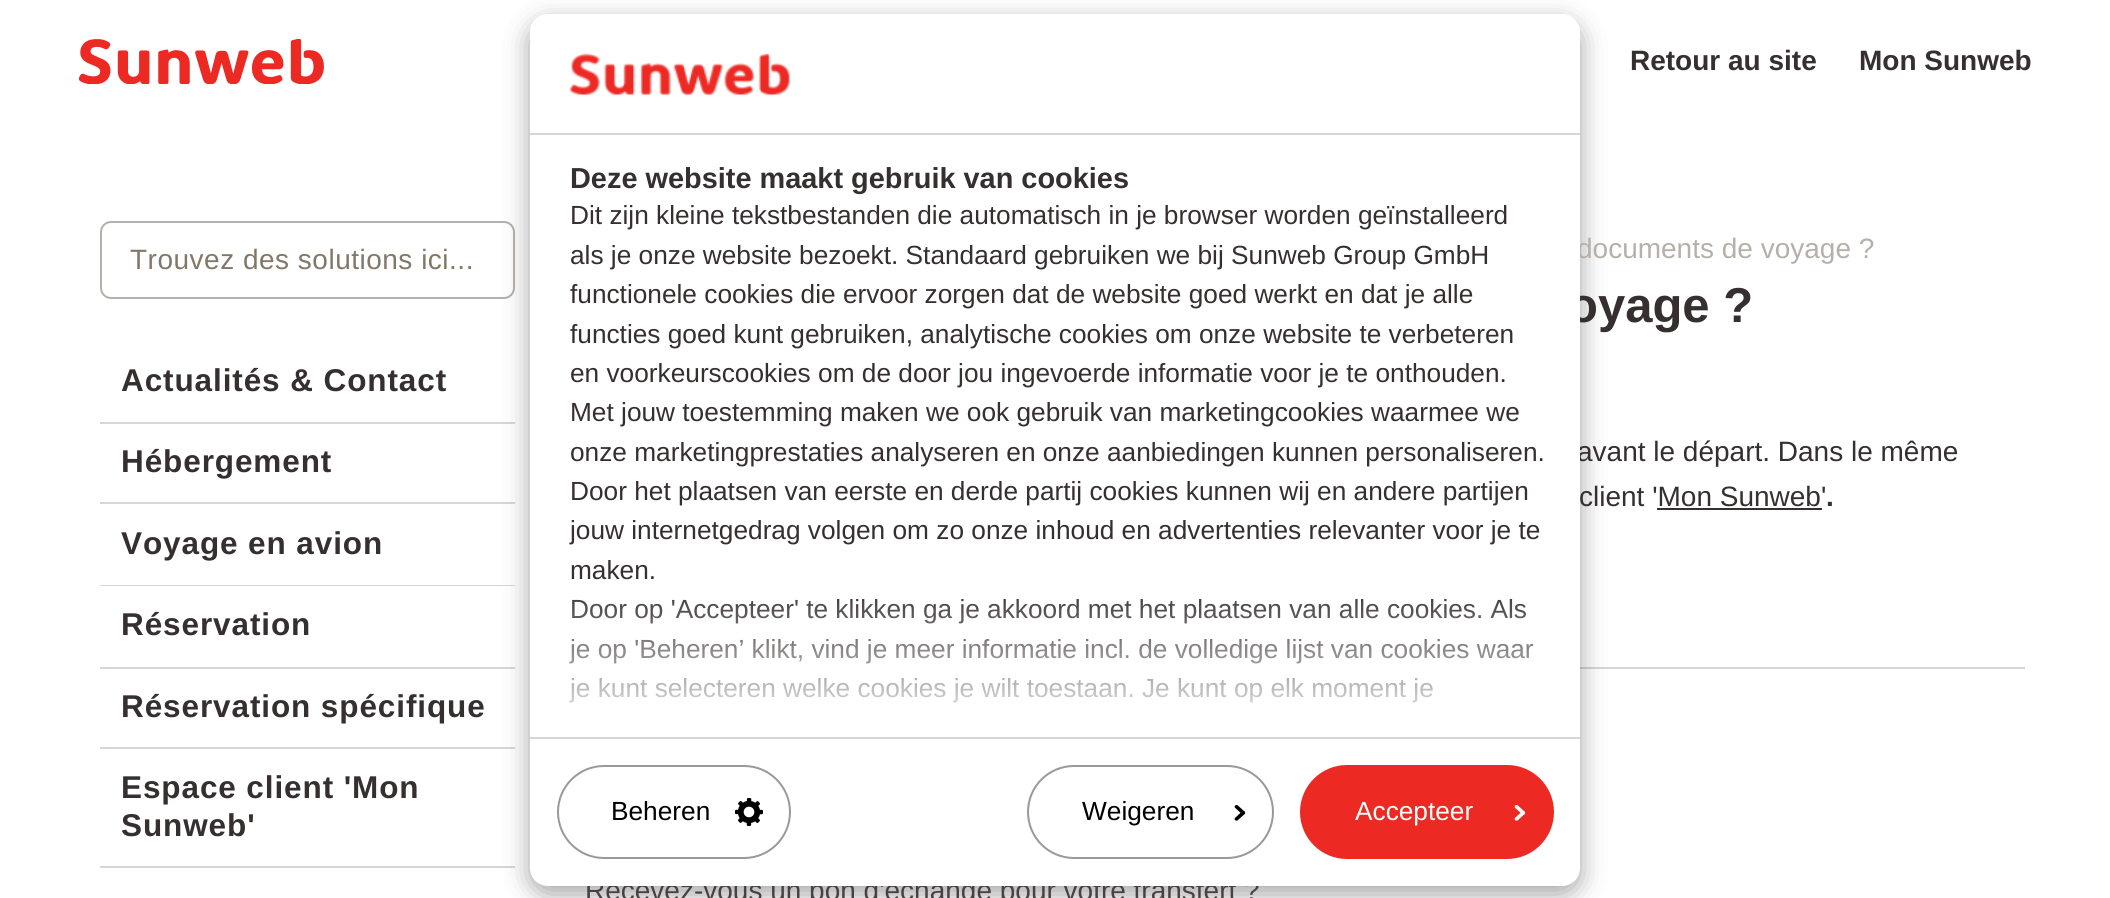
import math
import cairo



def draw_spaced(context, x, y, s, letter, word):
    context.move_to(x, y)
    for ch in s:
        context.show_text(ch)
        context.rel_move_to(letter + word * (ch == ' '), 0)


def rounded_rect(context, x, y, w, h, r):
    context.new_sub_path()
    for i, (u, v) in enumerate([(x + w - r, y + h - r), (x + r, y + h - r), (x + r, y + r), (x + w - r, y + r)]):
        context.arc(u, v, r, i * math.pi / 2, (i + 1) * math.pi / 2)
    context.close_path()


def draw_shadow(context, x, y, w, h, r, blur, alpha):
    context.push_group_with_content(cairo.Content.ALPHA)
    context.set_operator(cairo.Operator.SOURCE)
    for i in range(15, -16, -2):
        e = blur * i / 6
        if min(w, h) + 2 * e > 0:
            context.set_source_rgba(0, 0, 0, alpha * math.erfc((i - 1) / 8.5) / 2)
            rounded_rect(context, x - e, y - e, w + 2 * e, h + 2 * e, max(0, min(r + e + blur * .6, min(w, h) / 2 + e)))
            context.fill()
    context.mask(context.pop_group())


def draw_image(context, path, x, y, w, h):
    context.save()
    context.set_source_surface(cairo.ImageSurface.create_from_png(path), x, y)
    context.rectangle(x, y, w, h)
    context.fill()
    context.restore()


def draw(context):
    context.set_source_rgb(1, 1, 1)
    context.paint()
    draw_image(context, "images/1.png", 79, 39, 245, 45)
    rounded_rect(context, 101, 222, 413, 76, 10)
    context.set_source_rgb(181 / 255, 176 / 255, 171 / 255)
    context.stroke()
    context.set_source_rgb(217 / 255, 214 / 255, 209 / 255)
    context.rectangle(100, 422, 415, 2)
    context.fill()
    context.rectangle(100, 502, 415, 2)
    context.fill()
    context.rectangle(100, 585, 415, 1)
    context.fill()
    context.rectangle(100, 667, 415, 2)
    context.fill()
    context.rectangle(100, 747, 415, 2)
    context.fill()
    context.rectangle(100, 866, 415, 2)
    context.fill()
    context.rectangle(1580, 667, 445, 2)
    context.fill()
    context.set_source_rgb(0, 0, 0)
    draw_shadow(context, 530, 23, 1050, 871, 18, 13, 0.19)
    draw_shadow(context, 530, 23, 1050, 871, 18, 13, 0.2)
    context.set_source_rgb(1, 1, 1)
    context.new_path()
    context.move_to(548, 14)
    context.line_to(1562, 14)
    context.curve_to(1572, 14, 1580, 22, 1580, 32)
    context.line_to(1580, 135)
    context.line_to(530, 135)
    context.line_to(530, 32)
    context.curve_to(530, 22, 538, 14, 548, 14)
    context.close_path()
    context.fill()
    context.set_source_rgb(214 / 255, 214 / 255, 214 / 255)
    context.rectangle(530, 133, 1050, 2)
    context.fill()
    draw_image(context, "images/2.png", 570, 53, 220, 42)
    context.set_source_rgb(54 / 255, 47 / 255, 47 / 255)
    context.rectangle(1657, 508, 165, 2)
    context.fill()
    context.select_font_face("Liberation Sans", cairo.FontSlant.NORMAL, cairo.FontWeight.BOLD)
    context.set_font_size(28)
    context.move_to(1630, 70)
    context.show_text("Retour au site")
    context.move_to(1859, 70)
    context.show_text("Mon Sunweb")
    context.select_font_face("Liberation Sans")
    context.set_source_rgb(131 / 255, 120 / 255, 104 / 255)
    draw_spaced(context, 130, 269, "Trouvez des solutions ici...", 0.5, 0)
    context.select_font_face("Liberation Sans", cairo.FontSlant.NORMAL, cairo.FontWeight.BOLD)
    context.set_font_size(31.5)
    context.set_source_rgb(54 / 255, 47 / 255, 47 / 255)
    draw_spaced(context, 121, 391, "Actualités & Contact", 0.9, 0)
    draw_spaced(context, 121, 472, "Hébergement", 0.9, 0)
    draw_spaced(context, 121, 554, "Voyage en avion", 0.9, 0)
    draw_spaced(context, 121, 635, "Réservation", 0.9, 0)
    draw_spaced(context, 121, 717, "Réservation spécifique", 0.9, 0)
    draw_spaced(context, 121, 798, "Espace client 'Mon", 0.9, 0)
    draw_spaced(context, 121, 836, "Sunweb'", 0.9, 0)
    context.select_font_face("Liberation Sans")
    context.set_font_size(28)
    context.set_source_rgb(181 / 255, 176 / 255, 171 / 255)
    context.move_to(1577, 258)
    context.show_text("documents de voyage ?")
    context.select_font_face("Liberation Sans", cairo.FontSlant.NORMAL, cairo.FontWeight.BOLD)
    context.set_font_size(49)
    context.set_source_rgb(54 / 255, 47 / 255, 47 / 255)
    context.move_to(1568, 322)
    context.show_text("oyage ?")
    context.select_font_face("Liberation Sans")
    context.set_font_size(28)
    context.move_to(1577, 461)
    context.show_text("avant le départ. Dans le même")
    context.set_source_rgb(1, 1, 1)
    context.rectangle(530, 135, 1050, 602)
    context.fill()
    context.set_font_size(26.25)
    context.set_source_rgb(54 / 255, 47 / 255, 47 / 255)
    context.move_to(570, 697)
    context.show_text("je kunt selecteren welke cookies je wilt toestaan. Je kunt op elk moment je")
    context.move_to(570, 658)
    context.show_text("je op 'Beheren’ klikt, vind je meer informatie incl. de volledige lijst van cookies waar")
    context.move_to(570, 618)
    context.show_text("Door op 'Accepteer' te klikken ga je akkoord met het plaatsen van alle cookies. Als")
    gradient = cairo.LinearGradient(1042, 737, 1042, 586)
    gradient.add_color_stop_rgba(0, 1, 1, 1, 1)
    gradient.add_color_stop_rgba(1, 1, 1, 1, 0)
    context.set_source(gradient)
    context.rectangle(569, 599, 964, 104)
    context.fill()
    context.set_source_rgb(54 / 255, 47 / 255, 47 / 255)
    context.move_to(570, 579)
    context.show_text("maken.")
    context.move_to(570, 539)
    context.show_text("jouw internetgedrag volgen om zo onze inhoud en advertenties relevanter voor je te")
    context.move_to(570, 500)
    context.show_text("Door het plaatsen van eerste en derde partij cookies kunnen wij en andere partijen")
    context.move_to(570, 461)
    context.show_text("onze marketingprestaties analyseren en onze aanbiedingen kunnen personaliseren.")
    context.move_to(570, 421)
    context.show_text("Met jouw toestemming maken we ook gebruik van marketingcookies waarmee we")
    context.move_to(570, 382)
    context.show_text("en voorkeurscookies om de door jou ingevoerde informatie voor je te onthouden.")
    context.move_to(570, 343)
    context.show_text("functies goed kunt gebruiken, analytische cookies om onze website te verbeteren")
    context.move_to(570, 303)
    context.show_text("functionele cookies die ervoor zorgen dat de website goed werkt en dat je alle")
    context.move_to(570, 264)
    context.show_text("als je onze website bezoekt. Standaard gebruiken we bij Sunweb Group GmbH")
    context.move_to(570, 224)
    context.show_text("Dit zijn kleine tekstbestanden die automatisch in je browser worden geïnstalleerd")
    context.select_font_face("Liberation Sans", cairo.FontSlant.NORMAL, cairo.FontWeight.BOLD)
    context.set_font_size(28.9)
    context.move_to(570, 188)
    context.show_text("Deze website maakt gebruik van cookies")
    context.select_font_face("Liberation Sans")
    context.set_font_size(28)
    context.move_to(1579, 506)
    context.show_text("client 'Mon Sunweb'")
    context.select_font_face("Liberation Sans", cairo.FontSlant.NORMAL, cairo.FontWeight.BOLD)
    context.move_to(1826, 506)
    context.show_text(".")
    context.select_font_face("Liberation Sans")
    context.set_source_rgb(73 / 255, 65 / 255, 65 / 255)
    context.move_to(585, 900)
    context.show_text("Recevez-vous un bon d'échange pour votre transfert ?")
    context.set_source_rgb(1, 1, 1)
    context.new_path()
    context.move_to(530, 737)
    context.line_to(1580, 737)
    context.line_to(1580, 868)
    context.curve_to(1580, 878, 1572, 886, 1562, 886)
    context.line_to(548, 886)
    context.curve_to(538, 886, 530, 878, 530, 868)
    context.close_path()
    context.fill()
    context.set_source_rgb(237 / 255, 41 / 255, 36 / 255)
    rounded_rect(context, 1301, 766, 252, 92, 46)
    context.fill_preserve()
    context.stroke()
    draw_image(context, "images/5.png", 1514, 804, 12, 17)
    context.set_font_size(26.25)
    context.set_source_rgb(1, 1, 1)
    context.move_to(1355, 820)
    context.show_text("Accepteer")
    rounded_rect(context, 1028, 766, 245, 92, 46)
    context.set_source_rgb(153 / 255, 153 / 255, 153 / 255)
    context.stroke()
    draw_image(context, "images/4.png", 1234, 804, 12, 17)
    context.set_source_rgb(0, 0, 0)
    context.move_to(1082, 820)
    context.show_text("Weigeren")
    rounded_rect(context, 558, 766, 232, 92, 46)
    context.set_source_rgb(153 / 255, 153 / 255, 153 / 255)
    context.stroke()
    draw_image(context, "images/3.png", 735, 798, 28, 28)
    context.set_source_rgb(0, 0, 0)
    context.move_to(611, 820)
    context.show_text("Beheren")
    context.set_source_rgb(214 / 255, 214 / 255, 214 / 255)
    context.rectangle(530, 737, 1050, 2)
    context.fill()


surface = cairo.ImageSurface(cairo.Format.RGB24, 2110, 898)
context = cairo.Context(surface)
options = cairo.FontOptions()
options.set_hint_metrics(cairo.HintMetrics.OFF)
options.set_hint_style(cairo.HintStyle.NONE)
context.set_font_options(options)
context.set_miter_limit(4)
draw(context)
surface.write_to_png("out.png")
